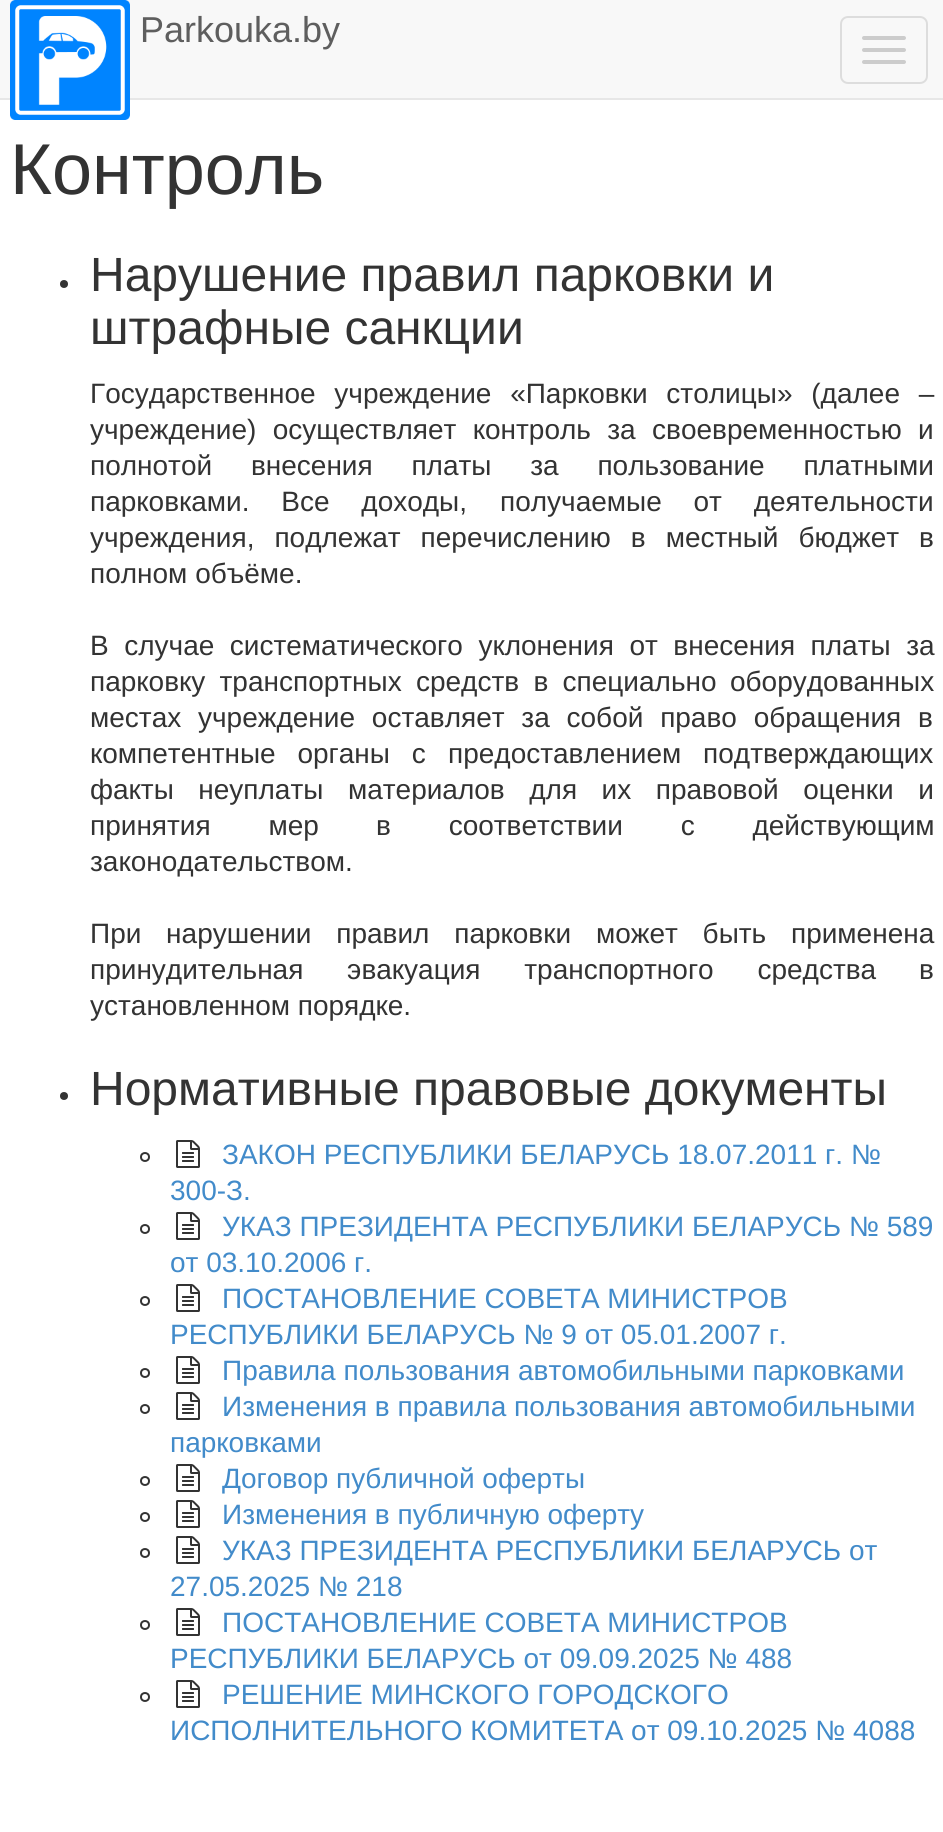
import math
import cairo



def draw_spaced(context, x, y, s, letter, word):
    context.move_to(x, y)
    for ch in s:
        context.show_text(ch)
        context.rel_move_to(letter + word * (ch == ' '), 0)


def rounded_rect(context, x, y, w, h, r):
    context.new_sub_path()
    for i, (u, v) in enumerate([(x + w - r, y + h - r), (x + r, y + h - r), (x + r, y + r), (x + w - r, y + r)]):
        context.arc(u, v, r, i * math.pi / 2, (i + 1) * math.pi / 2)
    context.close_path()


def draw_image(context, path, x, y, w, h):
    context.save()
    context.set_source_surface(cairo.ImageSurface.create_from_png(path), x, y)
    context.rectangle(x, y, w, h)
    context.fill()
    context.restore()


def draw(context):
    context.set_source_rgb(1, 1, 1)
    context.paint()
    context.set_source_rgb(248 / 255, 248 / 255, 248 / 255)
    context.rectangle(0, 0, 943, 98)
    context.fill()
    context.set_source_rgb(231 / 255, 231 / 255, 231 / 255)
    context.rectangle(0, 98, 943, 2)
    context.fill()
    draw_image(context, "images/1.png", 10, 0, 120, 120)
    rounded_rect(context, 841, 17, 86, 66, 7)
    context.set_source_rgb(221 / 255, 221 / 255, 221 / 255)
    context.stroke()
    context.set_source_rgb(204 / 255, 204 / 255, 204 / 255)
    rounded_rect(context, 862, 36, 44, 4, 2)
    context.fill()
    rounded_rect(context, 862, 48, 44, 4, 2)
    context.fill()
    rounded_rect(context, 862, 60, 44, 4, 2)
    context.fill()
    context.set_source_rgb(51 / 255, 51 / 255, 51 / 255)
    context.arc(64, 284, 4, 0, 2 * math.pi)
    context.fill()
    context.arc(64, 1096, 4, 0, 2 * math.pi)
    context.fill()
    context.arc(145, 1157, 4, 0, 2 * math.pi)
    context.stroke()
    draw_image(context, "images/2.png", 176, 1140, 24, 28)
    context.arc(145, 1229, 4, 0, 2 * math.pi)
    context.stroke()
    draw_image(context, "images/2.png", 176, 1212, 24, 28)
    context.arc(145, 1301, 4, 0, 2 * math.pi)
    context.stroke()
    draw_image(context, "images/2.png", 176, 1284, 24, 28)
    context.arc(145, 1373, 4, 0, 2 * math.pi)
    context.stroke()
    draw_image(context, "images/2.png", 176, 1356, 24, 28)
    context.arc(145, 1409, 4, 0, 2 * math.pi)
    context.stroke()
    draw_image(context, "images/2.png", 176, 1392, 24, 28)
    context.arc(145, 1481, 4, 0, 2 * math.pi)
    context.stroke()
    draw_image(context, "images/2.png", 176, 1464, 24, 28)
    context.arc(145, 1517, 4, 0, 2 * math.pi)
    context.stroke()
    draw_image(context, "images/2.png", 176, 1500, 24, 28)
    context.arc(145, 1553, 4, 0, 2 * math.pi)
    context.stroke()
    draw_image(context, "images/2.png", 176, 1536, 24, 28)
    context.arc(145, 1625, 4, 0, 2 * math.pi)
    context.stroke()
    draw_image(context, "images/2.png", 176, 1608, 24, 28)
    context.arc(145, 1697, 4, 0, 2 * math.pi)
    context.stroke()
    draw_image(context, "images/2.png", 176, 1680, 24, 28)
    context.select_font_face("Liberation Sans")
    context.set_font_size(36)
    context.set_source_rgb(94 / 255, 94 / 255, 94 / 255)
    context.move_to(140, 42)
    context.show_text("Parkouka.by")
    context.set_font_size(72)
    context.set_source_rgb(51 / 255, 51 / 255, 51 / 255)
    context.move_to(10, 194)
    context.show_text("Контроль")
    context.set_font_size(48)
    context.move_to(90, 291)
    context.show_text("Нарушение правил парковки и")
    context.move_to(90, 344)
    context.show_text("штрафные санкции")
    context.set_font_size(28)
    draw_spaced(context, 90, 403, "Государственное учреждение «Парковки столицы» (далее –", 0, 11)
    draw_spaced(context, 90, 439, "учреждение) осуществляет контроль за", 0, 8.5)
    draw_spaced(context, 652, 439, "своевременностью и", 0, 8.5)
    draw_spaced(context, 90, 475, "полнотой внесения платы за пользование платными", 0, 31)
    draw_spaced(context, 90, 511, "парковками. Все доходы,", 0, 24)
    draw_spaced(context, 500, 511, "получаемые от деятельности", 0, 24)
    draw_spaced(context, 90, 547, "учреждения, подлежат перечислению в местный бюджет в", 0, 12.25)
    context.move_to(90, 583)
    context.show_text("полном объёме.")
    draw_spaced(context, 90, 655, "В случае систематического уклонения от внесения платы за", 0, 7.75)
    draw_spaced(context, 90, 691, "парковку транспортных средств в специально", 0, 6.5)
    context.move_to(730, 691)
    context.show_text("оборудованных")
    draw_spaced(context, 90, 727, "местах учреждение оставляет за собой право обращения в", 0, 9)
    draw_spaced(context, 90, 763, "компетентные органы с", 0, 14)
    draw_spaced(context, 448, 763, "предоставлением подтверждающих", 0, 14)
    draw_spaced(context, 90, 799, "факты неуплаты материалов для их правовой оценки и", 0, 16.75)
    draw_spaced(context, 90, 835, "принятия мер", 0, 50)
    draw_spaced(context, 376, 835, "в соответствии с действующим", 0, 50)
    context.move_to(90, 871)
    context.show_text("законодательством.")
    draw_spaced(context, 90, 943, "При нарушении правил парковки может быть применена", 0, 17)
    draw_spaced(context, 90, 979, "принудительная эвакуация транспортного средства", 0, 36)
    context.move_to(919, 979)
    context.show_text("в")
    context.move_to(90, 1015)
    context.show_text("установленном порядке.")
    context.set_font_size(48)
    context.move_to(90, 1105)
    context.show_text("Нормативные правовые документы")
    context.set_font_size(28)
    context.set_source_rgb(66 / 255, 139 / 255, 202 / 255)
    context.move_to(222, 1164)
    context.show_text("ЗАКОН РЕСПУБЛИКИ БЕЛАРУСЬ 18.07.2011 г. №")
    context.move_to(170, 1200)
    context.show_text("300-З.")
    context.move_to(222, 1236)
    context.show_text("УКАЗ ПРЕЗИДЕНТА РЕСПУБЛИКИ БЕЛАРУСЬ № 589")
    context.move_to(170, 1272)
    context.show_text("от 03.10.2006 г.")
    context.move_to(222, 1308)
    context.show_text("ПОСТАНОВЛЕНИЕ СОВЕТА МИНИСТРОВ")
    context.move_to(170, 1344)
    context.show_text("РЕСПУБЛИКИ БЕЛАРУСЬ № 9 от 05.01.2007 г.")
    context.move_to(222, 1380)
    context.show_text("Правила пользования автомобильными парковками")
    context.move_to(222, 1416)
    context.show_text("Изменения в правила пользования автомобильными")
    context.move_to(170, 1452)
    context.show_text("парковками")
    context.move_to(222, 1488)
    context.show_text("Договор публичной оферты")
    context.move_to(222, 1524)
    context.show_text("Изменения в публичную оферту")
    context.move_to(222, 1560)
    context.show_text("УКАЗ ПРЕЗИДЕНТА РЕСПУБЛИКИ БЕЛАРУСЬ от")
    context.move_to(170, 1596)
    context.show_text("27.05.2025 № 218")
    context.move_to(222, 1632)
    context.show_text("ПОСТАНОВЛЕНИЕ СОВЕТА МИНИСТРОВ")
    context.move_to(170, 1668)
    context.show_text("РЕСПУБЛИКИ БЕЛАРУСЬ от 09.09.2025 № 488")
    context.move_to(222, 1704)
    context.show_text("РЕШЕНИЕ МИНСКОГО ГОРОДСКОГО")
    context.move_to(170, 1740)
    context.show_text("ИСПОЛНИТЕЛЬНОГО КОМИТЕТА от 09.10.2025 № 4088")


surface = cairo.ImageSurface(cairo.Format.RGB24, 943, 1832)
context = cairo.Context(surface)
options = cairo.FontOptions()
options.set_hint_metrics(cairo.HintMetrics.OFF)
options.set_hint_style(cairo.HintStyle.NONE)
context.set_font_options(options)
context.set_miter_limit(4)
draw(context)
surface.write_to_png("out.png")
